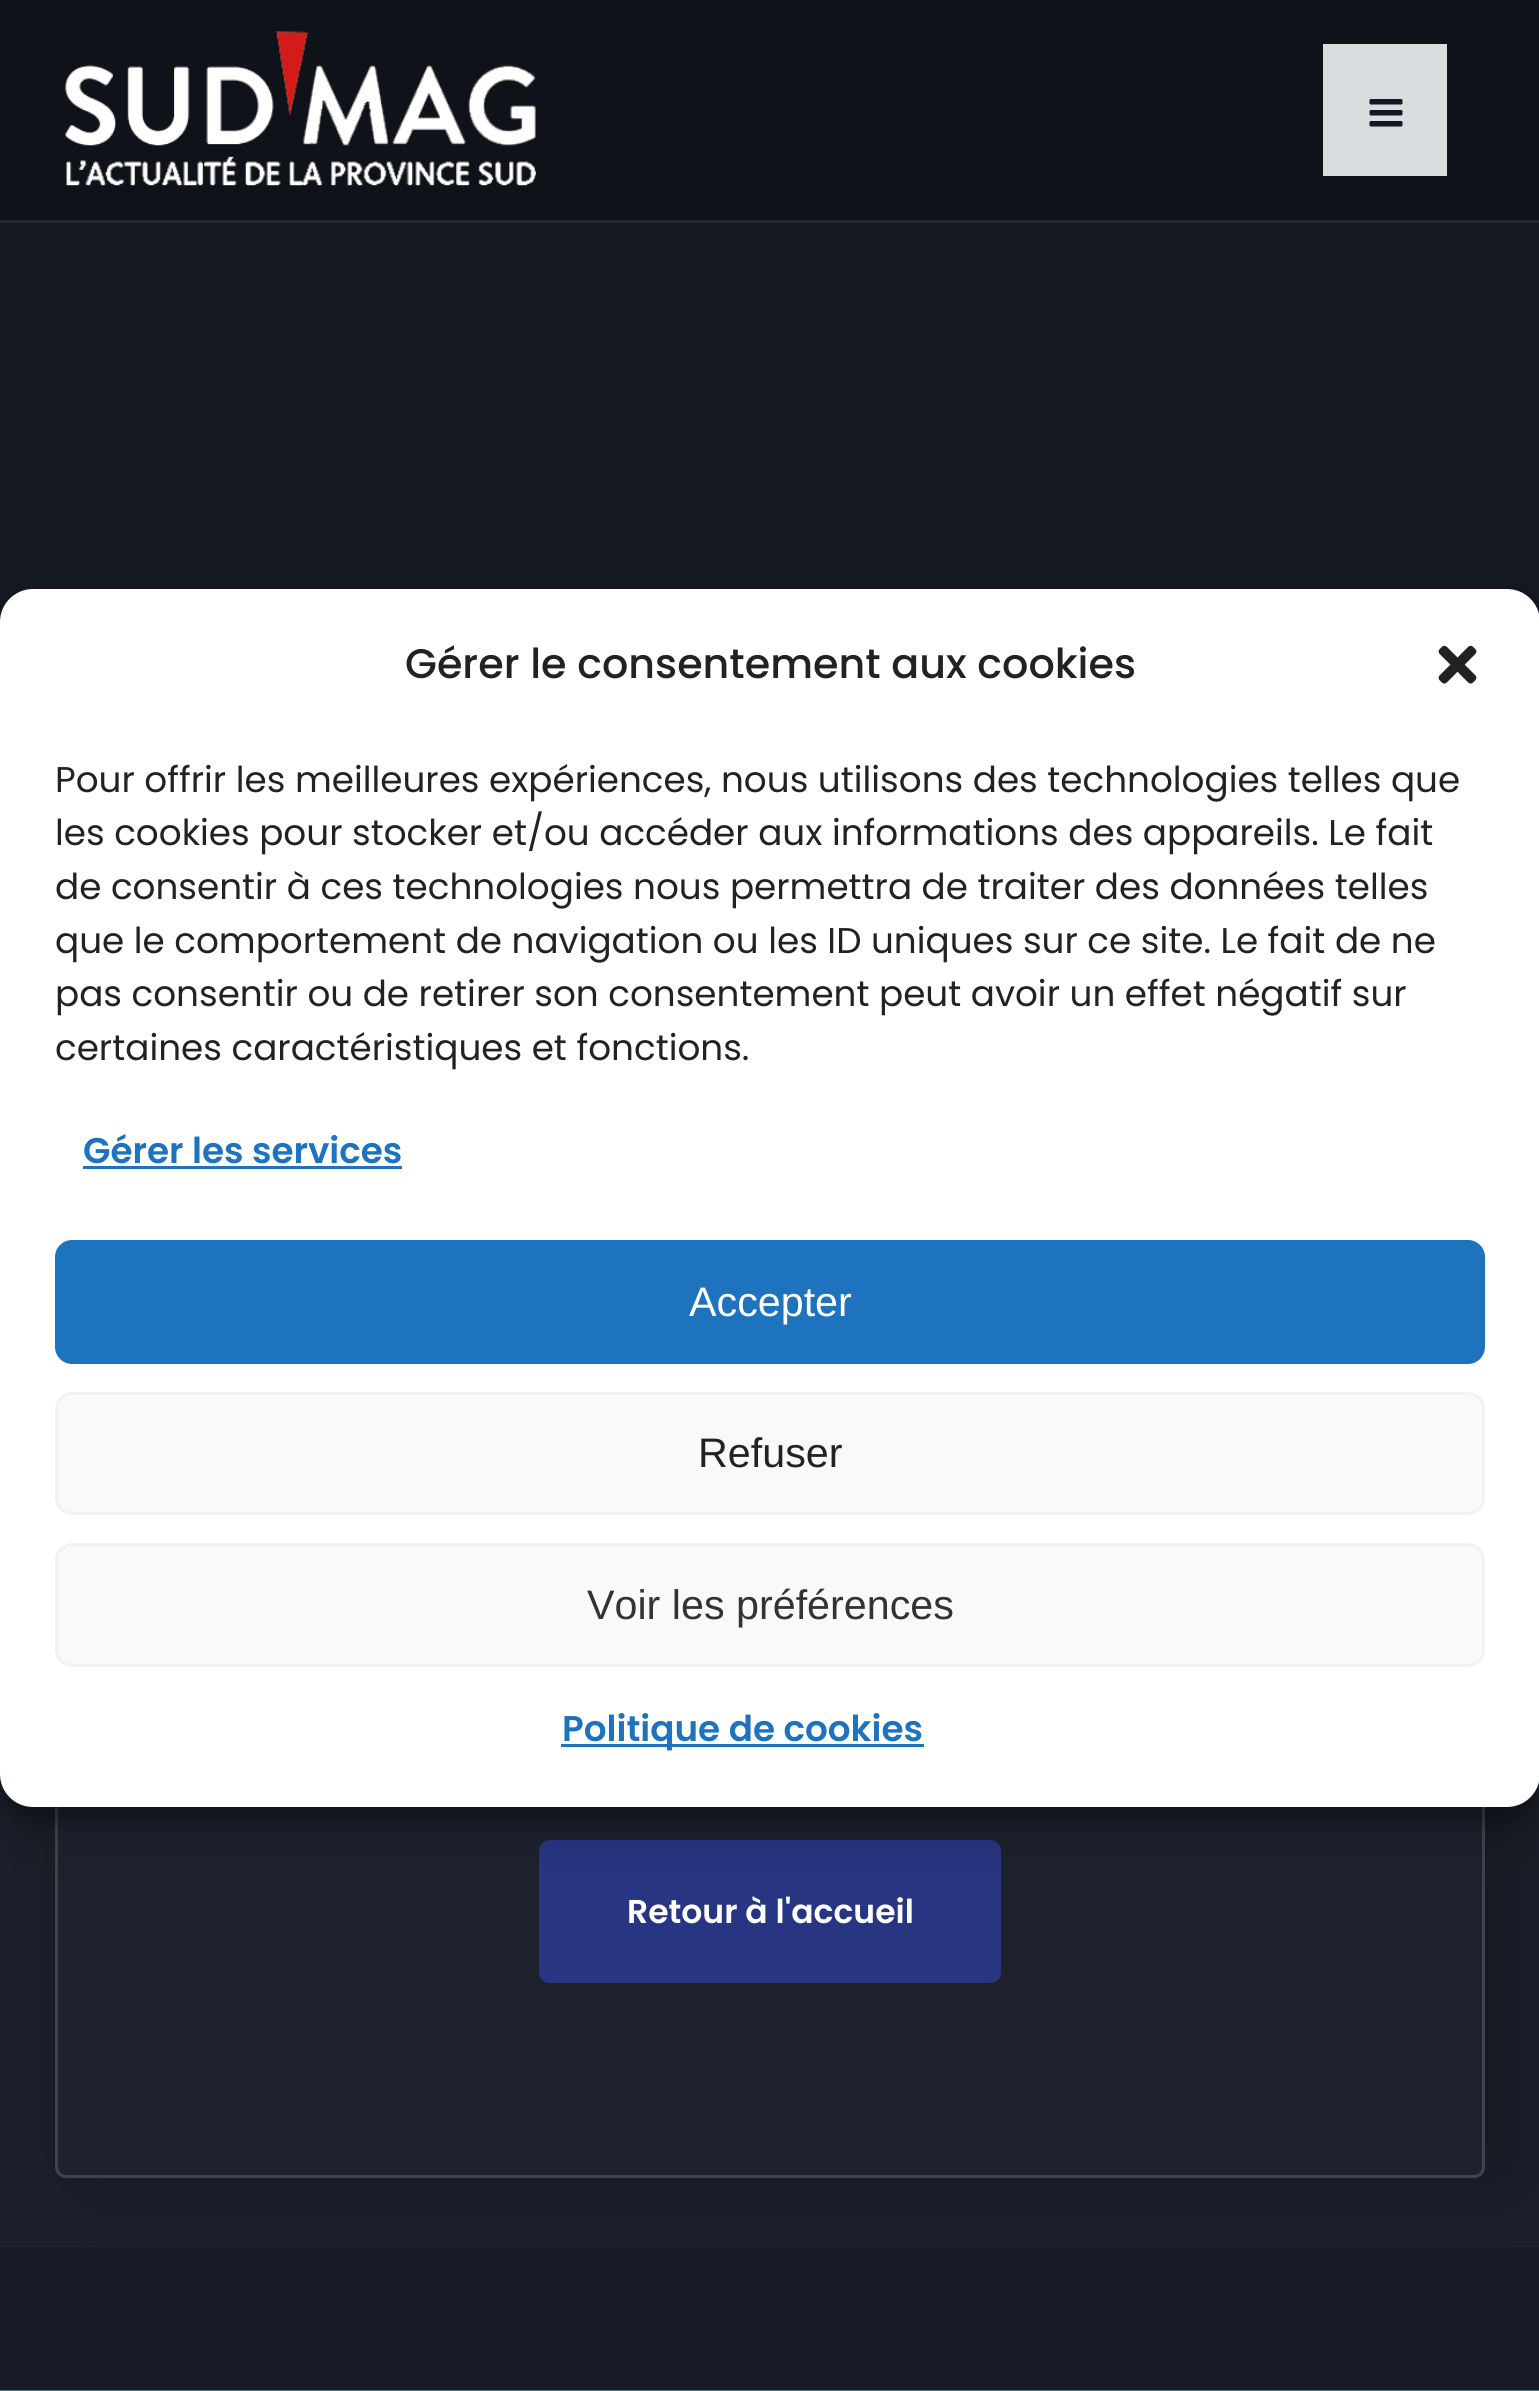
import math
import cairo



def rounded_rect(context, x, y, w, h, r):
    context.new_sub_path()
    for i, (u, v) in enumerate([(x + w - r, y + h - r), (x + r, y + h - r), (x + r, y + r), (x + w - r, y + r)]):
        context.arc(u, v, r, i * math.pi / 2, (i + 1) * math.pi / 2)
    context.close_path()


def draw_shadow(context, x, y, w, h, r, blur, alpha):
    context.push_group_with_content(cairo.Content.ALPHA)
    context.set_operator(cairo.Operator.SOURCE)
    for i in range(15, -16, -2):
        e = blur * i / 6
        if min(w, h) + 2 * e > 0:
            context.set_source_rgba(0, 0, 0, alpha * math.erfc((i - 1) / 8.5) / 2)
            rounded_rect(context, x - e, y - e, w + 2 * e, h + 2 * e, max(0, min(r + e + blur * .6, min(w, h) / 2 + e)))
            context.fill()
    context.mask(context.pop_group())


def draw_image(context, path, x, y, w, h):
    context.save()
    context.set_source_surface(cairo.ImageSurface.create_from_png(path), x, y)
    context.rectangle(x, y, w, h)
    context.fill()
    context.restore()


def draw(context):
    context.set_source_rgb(27 / 255, 32 / 255, 43 / 255)
    context.paint()
    context.set_source_rgb(20 / 255, 24 / 255, 33 / 255)
    context.rectangle(0, 223, 1539, 399)
    context.fill()
    context.set_source_rgb(0, 0, 0)
    draw_shadow(context, 83, 1218, 1430, 960, 11, 48, 0.25)
    context.set_source_rgb(30 / 255, 34 / 255, 46 / 255)
    rounded_rect(context, 56.5, 1219.5, 1427, 957, 9.5)
    context.fill_preserve()
    context.set_source_rgb(64 / 255, 67 / 255, 77 / 255)
    context.set_line_width(3)
    context.stroke()
    context.set_source_rgb(40 / 255, 53 / 255, 131 / 255)
    rounded_rect(context, 539, 1840, 462, 143, 11)
    context.fill()
    context.set_source_rgb(0, 0, 0)
    draw_shadow(context, 0, 605, 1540, 1218, 33, 8, 0.23)
    draw_shadow(context, 0, 616, 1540, 1218, 33, 27.5, 0.19)
    context.set_source_rgb(1, 1, 1)
    rounded_rect(context, 0, 589, 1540, 1218, 33)
    context.fill()
    draw_image(context, "images/1.png", 1438, 645, 39, 39)
    context.set_source_rgb(30 / 255, 115 / 255, 190 / 255)
    context.rectangle(83, 1166, 319, 3)
    context.fill()
    rounded_rect(context, 56.5, 1241.5, 1427, 121, 15.5)
    context.fill_preserve()
    context.stroke()
    context.set_source_rgb(249 / 255, 249 / 255, 249 / 255)
    rounded_rect(context, 56.5, 1393.5, 1427, 120, 15.5)
    context.fill_preserve()
    context.set_source_rgb(242 / 255, 242 / 255, 242 / 255)
    context.stroke()
    context.set_source_rgb(249 / 255, 249 / 255, 249 / 255)
    rounded_rect(context, 56.5, 1544.5, 1427, 121, 15.5)
    context.fill_preserve()
    context.set_source_rgb(242 / 255, 242 / 255, 242 / 255)
    context.stroke()
    context.set_source_rgb(30 / 255, 115 / 255, 190 / 255)
    context.rectangle(561, 1744, 363, 3)
    context.fill()
    context.set_source_rgb(15 / 255, 18 / 255, 24 / 255)
    context.rectangle(0, 0, 1539, 220)
    context.fill()
    context.set_source_rgb(37 / 255, 39 / 255, 45 / 255)
    context.rectangle(0, 220, 1539, 3)
    context.fill()
    draw_image(context, "images/2.png", 65, 31, 471, 155)
    context.set_source_rgb(217 / 255, 221 / 255, 224 / 255)
    context.rectangle(1323, 44, 124, 132)
    context.fill()
    draw_image(context, "images/3.png", 1369, 99, 34, 28)
    context.set_source_rgb(24 / 255, 28 / 255, 39 / 255)
    context.rectangle(0, 2247, 1539, 143)
    context.fill()
    context.set_source_rgb(85 / 255, 122 / 255, 137 / 255)
    context.rectangle(0, 2390, 1539, 1)
    context.fill()
    context.select_font_face("Poppins Medium")
    context.set_font_size(41.25)
    context.set_source_rgb(34 / 255, 34 / 255, 34 / 255)
    context.move_to(405, 678)
    context.show_text("Gérer le consentement aux cookies")
    context.select_font_face("Poppins")
    context.set_font_size(35.75)
    context.move_to(55, 792)
    context.show_text("Pour offrir les meilleures expériences, nous utilisons des technologies telles que")
    context.move_to(55, 845)
    context.show_text("les cookies pour stocker et/ou accéder aux informations des appareils. Le fait")
    context.move_to(55, 899)
    context.show_text("de consentir à ces technologies nous permettra de traiter des données telles")
    context.move_to(55, 953)
    context.show_text("que le comportement de navigation ou les ID uniques sur ce site. Le fait de ne")
    context.move_to(55, 1006)
    context.show_text("pas consentir ou de retirer son consentement peut avoir un effet négatif sur")
    context.move_to(55, 1060)
    context.show_text("certaines caractéristiques et fonctions.")
    context.select_font_face("Poppins SemiBold")
    context.set_source_rgb(30 / 255, 115 / 255, 190 / 255)
    context.move_to(83, 1163)
    context.show_text("Gérer les services")
    context.select_font_face("Liberation Sans")
    context.set_font_size(41.25)
    context.set_source_rgb(1, 1, 1)
    context.move_to(689, 1316)
    context.show_text("Accepter")
    context.set_source_rgb(34 / 255, 34 / 255, 34 / 255)
    context.move_to(698, 1467)
    context.show_text("Refuser")
    context.set_source_rgb(51 / 255, 51 / 255, 51 / 255)
    context.move_to(587, 1619)
    context.show_text("Voir les préférences")
    context.select_font_face("Poppins SemiBold")
    context.set_font_size(35.75)
    context.set_source_rgb(30 / 255, 115 / 255, 190 / 255)
    context.move_to(562, 1741)
    context.show_text("Politique de cookies")
    context.set_font_size(33)
    context.set_source_rgb(1, 1, 1)
    context.move_to(627, 1923)
    context.show_text("Retour à l'accueil")


surface = cairo.ImageSurface(cairo.Format.RGB24, 1539, 2391)
context = cairo.Context(surface)
options = cairo.FontOptions()
options.set_hint_metrics(cairo.HintMetrics.OFF)
options.set_hint_style(cairo.HintStyle.NONE)
context.set_font_options(options)
context.set_miter_limit(4)
draw(context)
surface.write_to_png("out.png")
